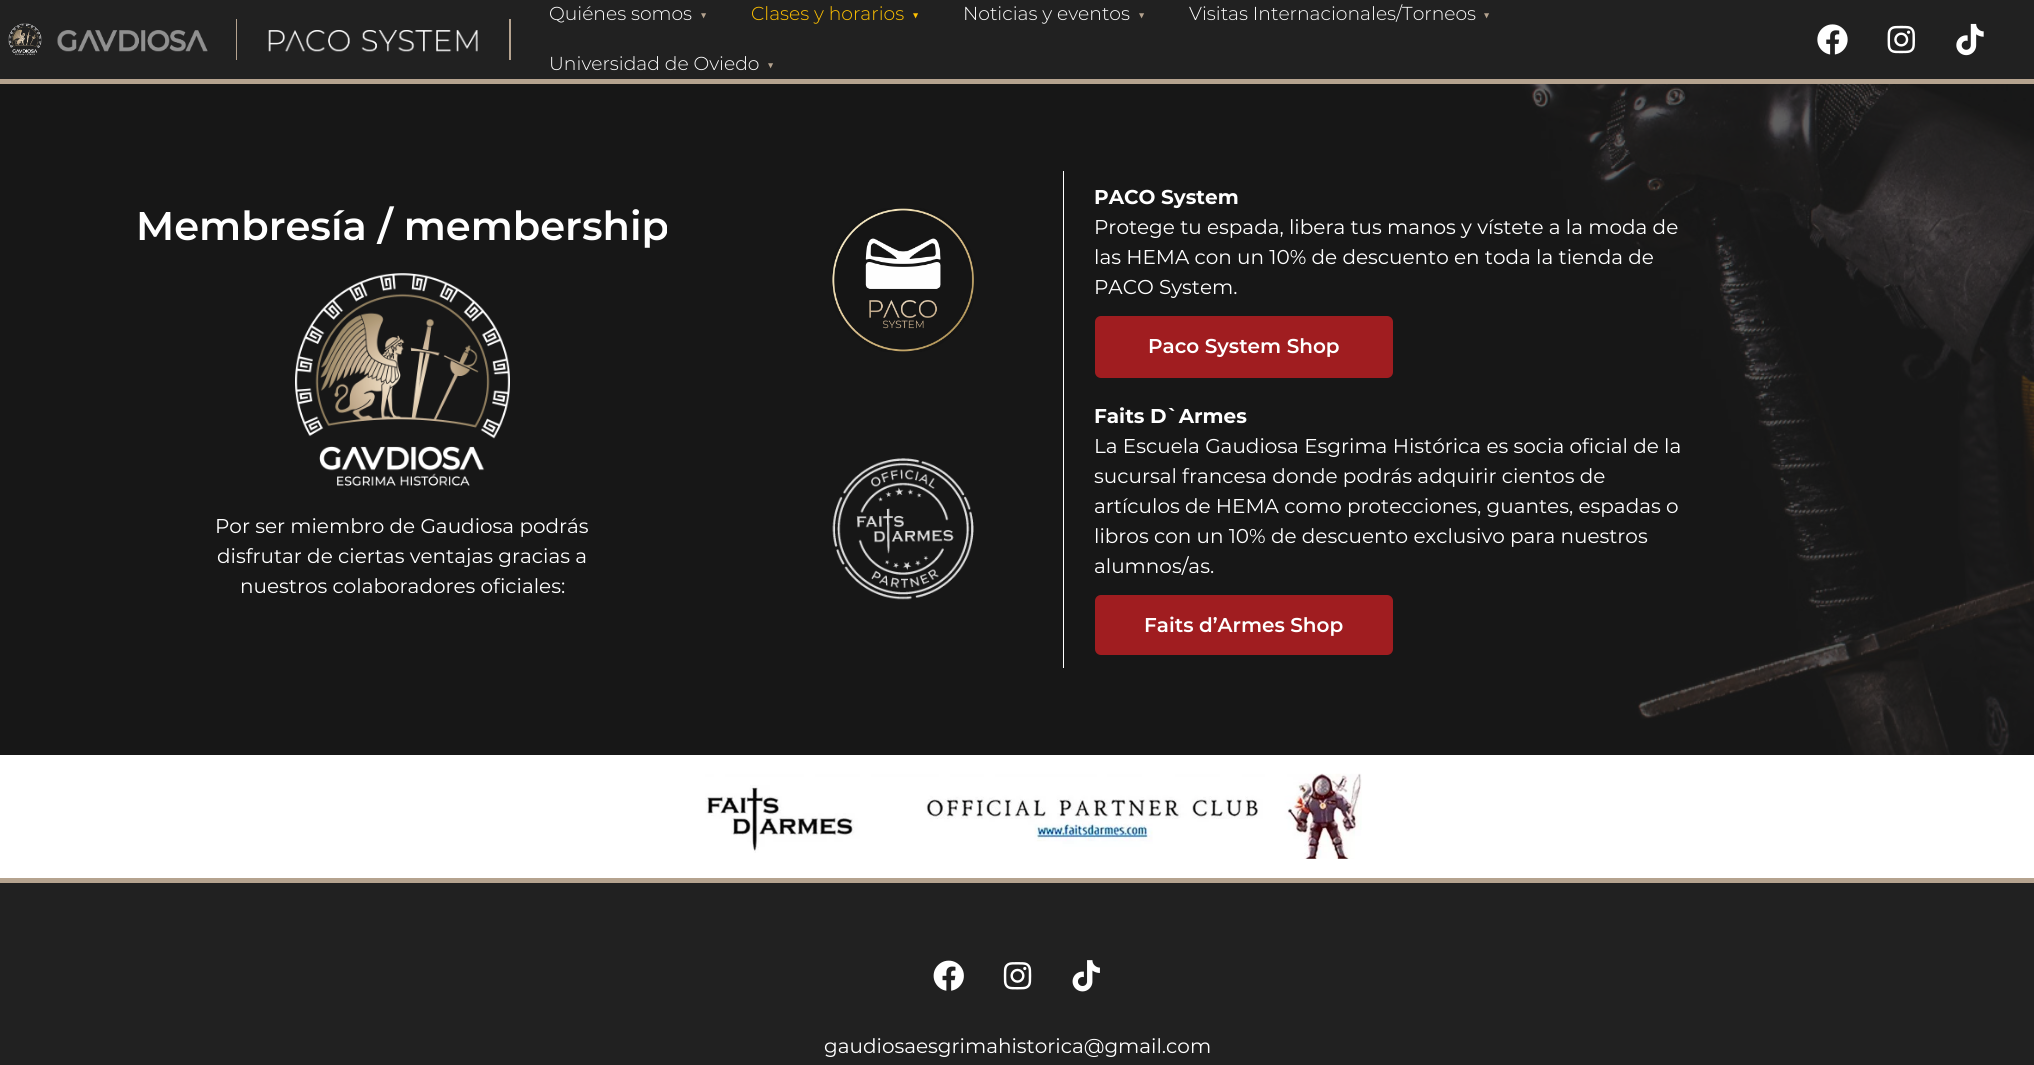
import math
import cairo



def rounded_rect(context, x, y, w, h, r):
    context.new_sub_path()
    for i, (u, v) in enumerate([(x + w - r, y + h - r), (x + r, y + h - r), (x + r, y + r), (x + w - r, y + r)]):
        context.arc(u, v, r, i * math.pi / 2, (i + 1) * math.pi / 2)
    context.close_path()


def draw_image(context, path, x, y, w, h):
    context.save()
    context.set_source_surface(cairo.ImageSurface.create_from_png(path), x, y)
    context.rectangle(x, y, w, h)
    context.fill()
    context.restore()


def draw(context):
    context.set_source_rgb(23 / 255, 23 / 255, 23 / 255)
    context.paint()
    context.set_source_rgb(33 / 255, 33 / 255, 33 / 255)
    context.rectangle(0, 0, 2034, 79)
    context.fill()
    context.set_source_rgb(181 / 255, 163 / 255, 143 / 255)
    context.rectangle(0, 79, 2034, 5)
    context.fill()
    draw_image(context, "images/1.png", 8, 23, 34, 32)
    draw_image(context, "images/2.png", 57, 30, 151, 22)
    context.rectangle(236, 19, 1, 41)
    context.fill()
    draw_image(context, "images/3.png", 268, 30, 210, 22)
    context.rectangle(509, 19, 2, 41)
    context.fill()
    draw_image(context, "images/4.png", 1817, 24, 31, 31)
    draw_image(context, "images/5.png", 1887, 25, 28, 29)
    draw_image(context, "images/6.png", 1956, 23, 28, 33)
    draw_image(context, "images/7.png", 1522, 84, 512, 671)
    draw_image(context, "images/8.png", 295, 273, 215, 213)
    context.set_source_rgb(1, 1, 1)
    context.rectangle(1063, 171, 1, 497)
    context.fill()
    draw_image(context, "images/9.png", 832, 208, 142, 144)
    context.set_source_rgb(160 / 255, 29 / 255, 32 / 255)
    rounded_rect(context, 1095, 316, 298, 62, 6)
    context.fill()
    draw_image(context, "images/10.png", 832, 458, 142, 142)
    rounded_rect(context, 1095, 595, 298, 60, 6)
    context.fill()
    context.set_source_rgb(1, 1, 1)
    context.rectangle(0, 755, 2034, 123)
    context.fill()
    draw_image(context, "images/11.png", 705, 773, 657, 86)
    context.set_source_rgb(33 / 255, 33 / 255, 33 / 255)
    context.rectangle(0, 883, 2034, 182)
    context.fill()
    context.set_source_rgb(181 / 255, 163 / 255, 143 / 255)
    context.rectangle(0, 878, 2034, 5)
    context.fill()
    draw_image(context, "images/12.png", 933, 960, 31, 31)
    draw_image(context, "images/13.png", 1003, 962, 29, 28)
    draw_image(context, "images/14.png", 1072, 960, 28, 32)
    context.select_font_face("Montserrat Light")
    context.set_font_size(18.75)
    context.set_source_rgb(1, 1, 1)
    context.move_to(549, 20)
    context.show_text("Quiénes somos")
    context.select_font_face("Montserrat Black")
    context.set_font_size(12)
    context.set_source_rgb(181 / 255, 163 / 255, 143 / 255)
    context.move_to(700, 19)
    context.show_text("▼")
    context.select_font_face("Montserrat Light")
    context.set_font_size(18.75)
    context.set_source_rgb(1, 193 / 255, 0)
    context.move_to(751, 20)
    context.show_text("Clases y horarios")
    context.select_font_face("Montserrat Black")
    context.set_font_size(12)
    context.move_to(912, 19)
    context.show_text("▼")
    context.select_font_face("Montserrat Light")
    context.set_font_size(18.75)
    context.set_source_rgb(1, 1, 1)
    context.move_to(963, 20)
    context.show_text("Noticias y eventos")
    context.select_font_face("Montserrat Black")
    context.set_font_size(12)
    context.set_source_rgb(181 / 255, 163 / 255, 143 / 255)
    context.move_to(1138, 19)
    context.show_text("▼")
    context.select_font_face("Montserrat Light")
    context.set_font_size(18.75)
    context.set_source_rgb(1, 1, 1)
    context.move_to(1189, 20)
    context.show_text("Visitas Internacionales/Torneos")
    context.select_font_face("Montserrat Black")
    context.set_font_size(12)
    context.set_source_rgb(181 / 255, 163 / 255, 143 / 255)
    context.move_to(1483, 19)
    context.show_text("▼")
    context.select_font_face("Montserrat Light")
    context.set_font_size(18.75)
    context.set_source_rgb(1, 1, 1)
    context.move_to(549, 70)
    context.show_text("Universidad de Oviedo")
    context.select_font_face("Montserrat Black")
    context.set_font_size(12)
    context.set_source_rgb(181 / 255, 163 / 255, 143 / 255)
    context.move_to(767, 69)
    context.show_text("▼")
    context.select_font_face("Montserrat SemiBold")
    context.set_font_size(40)
    context.set_source_rgb(1, 1, 1)
    context.move_to(136, 240)
    context.show_text("Membresía / membership")
    context.select_font_face("Montserrat")
    context.set_font_size(20)
    context.move_to(215, 533)
    context.show_text("Por ser miembro de Gaudiosa podrás")
    context.move_to(217, 563)
    context.show_text("disfrutar de ciertas ventajas gracias a")
    context.move_to(240, 593)
    context.show_text("nuestros colaboradores oficiales:")
    context.select_font_face("Montserrat", cairo.FontSlant.NORMAL, cairo.FontWeight.BOLD)
    context.move_to(1094, 204)
    context.show_text("PACO System")
    context.select_font_face("Montserrat")
    context.move_to(1094, 234)
    context.show_text("Protege tu espada, libera tus manos y vístete a la moda de")
    context.move_to(1094, 264)
    context.show_text("las HEMA con un 10% de descuento en toda la tienda de")
    context.move_to(1094, 294)
    context.show_text("PACO System.")
    context.select_font_face("Montserrat SemiBold")
    context.move_to(1148, 353)
    context.show_text("Paco System Shop")
    context.select_font_face("Montserrat", cairo.FontSlant.NORMAL, cairo.FontWeight.BOLD)
    context.move_to(1094, 423)
    context.show_text("Faits D`Armes")
    context.select_font_face("Montserrat")
    context.move_to(1094, 453)
    context.show_text("La Escuela Gaudiosa Esgrima Histórica es socia oficial de la")
    context.move_to(1094, 483)
    context.show_text("sucursal francesa donde podrás adquirir cientos de")
    context.move_to(1094, 513)
    context.show_text("artículos de HEMA como protecciones, guantes, espadas o")
    context.move_to(1094, 543)
    context.show_text("libros con un 10% de descuento exclusivo para nuestros")
    context.move_to(1094, 573)
    context.show_text("alumnos/as.")
    context.select_font_face("Montserrat SemiBold")
    context.move_to(1144, 632)
    context.show_text("Faits d’Armes Shop")
    context.select_font_face("Montserrat")
    context.move_to(824, 1053)
    context.show_text("gaudiosaesgrimahistorica@gmail.com")


surface = cairo.ImageSurface(cairo.Format.RGB24, 2034, 1065)
context = cairo.Context(surface)
options = cairo.FontOptions()
options.set_hint_metrics(cairo.HintMetrics.OFF)
options.set_hint_style(cairo.HintStyle.NONE)
context.set_font_options(options)
context.set_miter_limit(4)
draw(context)
surface.write_to_png("out.png")
